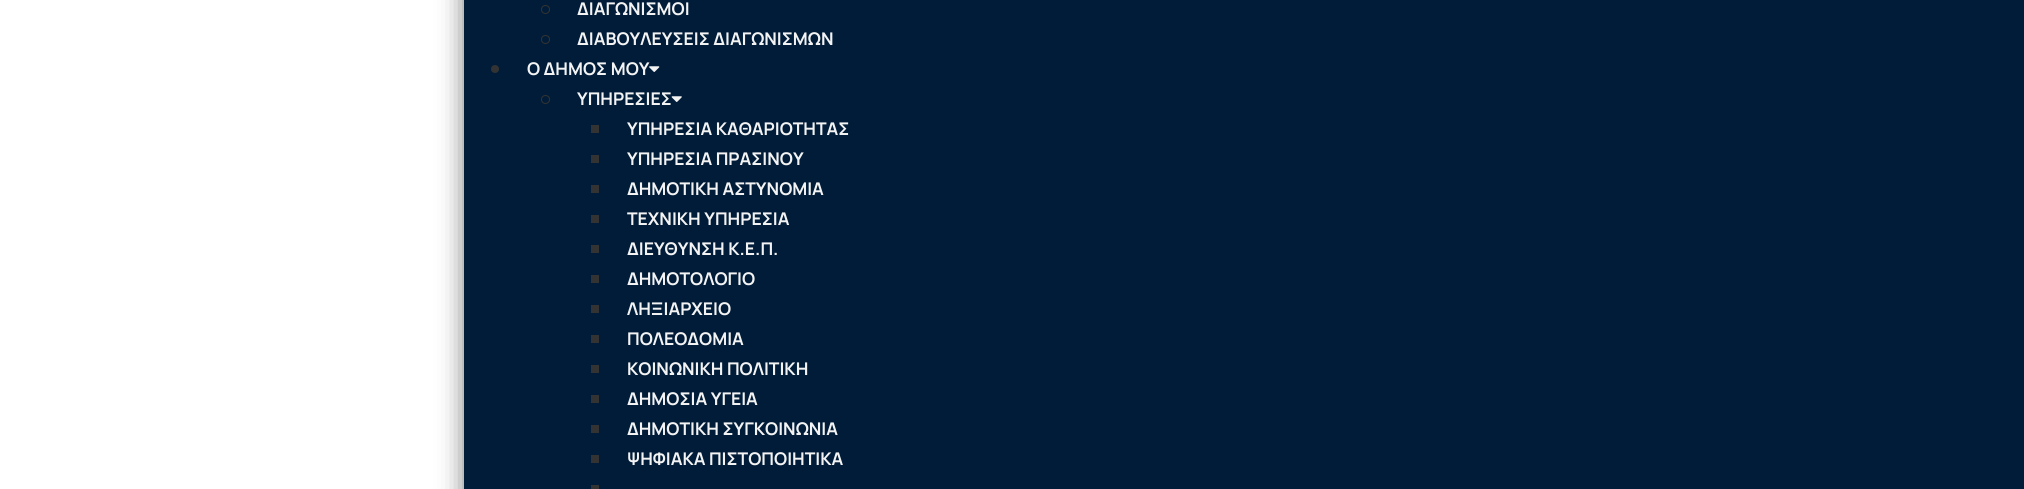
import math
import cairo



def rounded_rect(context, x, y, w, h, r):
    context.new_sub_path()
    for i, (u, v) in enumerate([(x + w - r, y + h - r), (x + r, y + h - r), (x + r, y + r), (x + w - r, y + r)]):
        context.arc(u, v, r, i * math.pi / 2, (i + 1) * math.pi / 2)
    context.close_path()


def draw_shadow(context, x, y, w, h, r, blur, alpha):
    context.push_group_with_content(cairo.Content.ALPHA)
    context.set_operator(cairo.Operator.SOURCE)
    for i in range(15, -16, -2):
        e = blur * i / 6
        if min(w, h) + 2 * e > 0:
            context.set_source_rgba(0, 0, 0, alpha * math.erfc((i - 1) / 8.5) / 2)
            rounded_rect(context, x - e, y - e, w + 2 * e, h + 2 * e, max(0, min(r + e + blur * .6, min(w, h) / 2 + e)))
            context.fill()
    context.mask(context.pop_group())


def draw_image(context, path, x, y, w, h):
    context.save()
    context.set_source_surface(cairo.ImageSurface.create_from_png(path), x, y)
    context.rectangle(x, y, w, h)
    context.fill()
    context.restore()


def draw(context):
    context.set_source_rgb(1, 1, 1)
    context.paint()
    context.set_source_rgb(0, 0, 0)
    draw_shadow(context, 464, -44, 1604, 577, 6, 12.5, 0.52)
    context.set_source_rgb(0, 28 / 255, 56 / 255)
    context.rectangle(464, 0, 1560, 489)
    context.fill()
    context.arc(545.5, 9.5, 4, 0, 2 * math.pi)
    context.set_source_rgb(51 / 255, 51 / 255, 51 / 255)
    context.set_line_width(1)
    context.stroke()
    context.arc(545.5, 39.5, 4, 0, 2 * math.pi)
    context.stroke()
    context.arc(495, 69, 4, 0, 2 * math.pi)
    context.fill()
    draw_image(context, "images/1.png", 649, 66, 11, 6)
    context.arc(545.5, 99.5, 4, 0, 2 * math.pi)
    context.stroke()
    draw_image(context, "images/2.png", 671, 96, 11, 6)
    context.rectangle(591, 125, 8, 8)
    context.fill()
    context.rectangle(591, 155, 8, 8)
    context.fill()
    context.rectangle(591, 185, 8, 8)
    context.fill()
    context.rectangle(591, 215, 8, 8)
    context.fill()
    context.rectangle(591, 245, 8, 8)
    context.fill()
    context.rectangle(591, 275, 8, 8)
    context.fill()
    context.rectangle(591, 305, 8, 8)
    context.fill()
    context.rectangle(591, 335, 8, 8)
    context.fill()
    context.rectangle(591, 365, 8, 8)
    context.fill()
    context.rectangle(591, 395, 8, 8)
    context.fill()
    context.rectangle(591, 425, 8, 8)
    context.fill()
    context.rectangle(591, 455, 8, 8)
    context.fill()
    context.rectangle(591, 485, 8, 4)
    context.fill()
    context.select_font_face("Manrope", cairo.FontSlant.NORMAL, cairo.FontWeight.BOLD)
    context.set_font_size(17.5)
    context.set_source_rgb(243 / 255, 243 / 255, 243 / 255)
    context.move_to(577, 15)
    context.show_text("ΔΙΑΓΩΝΙΣΜΟΙ")
    context.move_to(577, 45)
    context.show_text("ΔΙΑΒΟΥΛΕΥΣΕΙΣ ΔΙΑΓΩΝΙΣΜΩΝ")
    context.move_to(527, 75)
    context.show_text("Ο ΔΗΜΟΣ ΜΟΥ")
    context.move_to(577, 105)
    context.show_text("ΥΠΗΡΕΣΙΕΣ")
    context.move_to(627, 135)
    context.show_text("ΥΠΗΡΕΣΙΑ ΚΑΘΑΡΙΟΤΗΤΑΣ")
    context.move_to(627, 165)
    context.show_text("ΥΠΗΡΕΣΙΑ ΠΡΑΣΙΝΟΥ")
    context.move_to(627, 195)
    context.show_text("ΔΗΜΟΤΙΚΗ ΑΣΤΥΝΟΜΙΑ")
    context.move_to(627, 225)
    context.show_text("ΤΕΧΝΙΚΗ ΥΠΗΡΕΣΙΑ")
    context.move_to(627, 255)
    context.show_text("ΔΙΕΥΘΥΝΣΗ Κ.Ε.Π.")
    context.move_to(627, 285)
    context.show_text("ΔΗΜΟΤΟΛΟΓΙΟ")
    context.move_to(627, 315)
    context.show_text("ΛΗΞΙΑΡΧΕΙΟ")
    context.move_to(627, 345)
    context.show_text("ΠΟΛΕΟΔΟΜΙΑ")
    context.move_to(627, 375)
    context.show_text("ΚΟΙΝΩΝΙΚΗ ΠΟΛΙΤΙΚΗ")
    context.move_to(627, 405)
    context.show_text("ΔΗΜΟΣΙΑ ΥΓΕΙΑ")
    context.move_to(627, 435)
    context.show_text("ΔΗΜΟΤΙΚΗ ΣΥΓΚΟΙΝΩΝΙΑ")
    context.move_to(627, 465)
    context.show_text("ΨΗΦΙΑΚΑ ΠΙΣΤΟΠΟΙΗΤΙΚΑ")


surface = cairo.ImageSurface(cairo.Format.RGB24, 2024, 489)
context = cairo.Context(surface)
options = cairo.FontOptions()
options.set_hint_metrics(cairo.HintMetrics.OFF)
options.set_hint_style(cairo.HintStyle.NONE)
context.set_font_options(options)
context.set_miter_limit(4)
draw(context)
surface.write_to_png("out.png")
